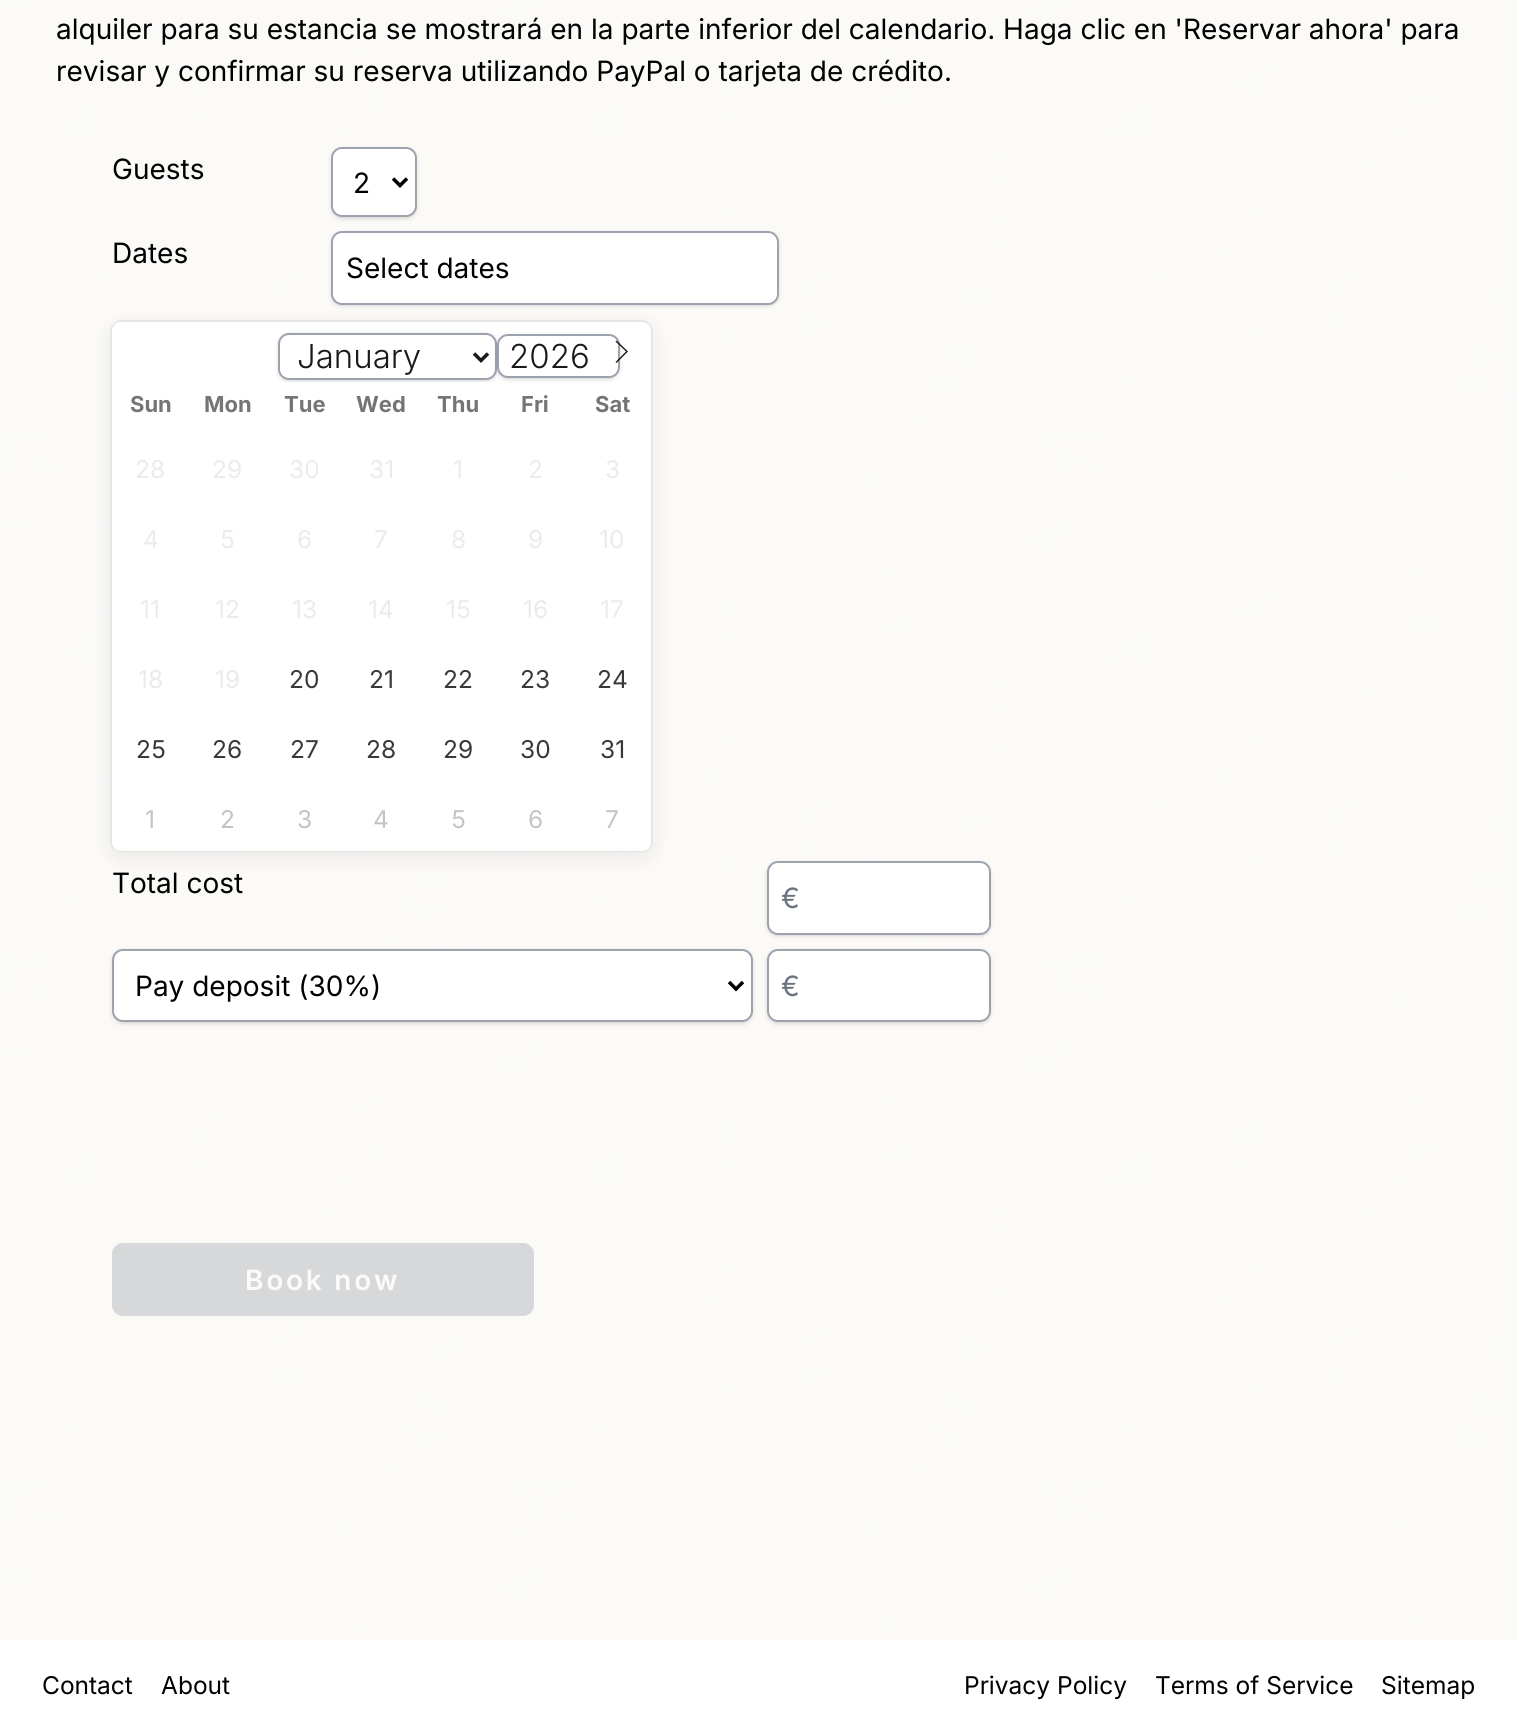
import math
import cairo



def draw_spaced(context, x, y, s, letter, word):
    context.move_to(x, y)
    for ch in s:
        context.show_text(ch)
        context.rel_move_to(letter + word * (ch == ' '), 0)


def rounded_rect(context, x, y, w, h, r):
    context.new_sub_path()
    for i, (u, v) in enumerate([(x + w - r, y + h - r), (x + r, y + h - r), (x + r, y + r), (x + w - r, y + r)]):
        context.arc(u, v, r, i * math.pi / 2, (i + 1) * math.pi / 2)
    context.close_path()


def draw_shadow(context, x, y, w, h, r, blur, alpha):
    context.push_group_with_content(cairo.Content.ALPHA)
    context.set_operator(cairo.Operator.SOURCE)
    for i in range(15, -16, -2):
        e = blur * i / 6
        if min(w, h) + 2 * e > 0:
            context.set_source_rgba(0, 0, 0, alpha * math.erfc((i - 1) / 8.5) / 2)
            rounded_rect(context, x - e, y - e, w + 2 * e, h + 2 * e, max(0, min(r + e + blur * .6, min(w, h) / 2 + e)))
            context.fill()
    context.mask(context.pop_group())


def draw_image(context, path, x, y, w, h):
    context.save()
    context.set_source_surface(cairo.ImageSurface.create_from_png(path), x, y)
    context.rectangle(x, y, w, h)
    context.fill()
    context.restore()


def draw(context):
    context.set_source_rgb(1, 1, 1)
    context.paint()
    draw_image(context, "images/1.png", 0, 0, 1517, 1640)
    context.set_source_rgb(0, 0, 0)
    draw_shadow(context, 333, 151, 82, 66, 9, 2, 0.1)
    draw_shadow(context, 331, 149, 86, 70, 11, 2.5, 0.1)
    context.set_source_rgb(1, 1, 1)
    rounded_rect(context, 332, 148, 84, 68, 10)
    context.fill_preserve()
    context.set_source_rgb(156 / 255, 163 / 255, 175 / 255)
    context.stroke()
    context.new_path()
    context.move_to(393, 178.5)
    context.line_to(400, 185.5)
    context.line_to(407, 178.5)
    context.set_source_rgb(0, 0, 0)
    context.set_line_width(3.5)
    context.stroke()
    context.set_source_rgb(0, 0, 0)
    draw_shadow(context, 333, 235, 444, 70, 9, 2, 0.1)
    draw_shadow(context, 331, 233, 448, 73, 11, 2.5, 0.1)
    context.set_source_rgb(1, 1, 1)
    rounded_rect(context, 332, 232, 446, 72, 10)
    context.fill_preserve()
    context.set_source_rgb(156 / 255, 163 / 255, 175 / 255)
    context.set_line_width(2)
    context.stroke()
    context.set_source_rgb(0, 0, 0)
    draw_shadow(context, 112, 327, 539, 529, 9, 11.5, 0.08)
    context.set_source_rgb(230 / 255, 230 / 255, 230 / 255)
    context.new_path()
    context.move_to(121, 320)
    context.curve_to(115, 320, 112, 325, 112, 331)
    context.curve_to(112, 326, 116, 322, 121, 322)
    context.line_to(642, 322)
    context.curve_to(647, 322, 651, 326, 651, 331)
    context.curve_to(651, 325, 648, 320, 642, 320)
    context.close_path()
    context.fill()
    context.new_path()
    context.move_to(112, 842)
    context.curve_to(112, 847, 115, 852, 121, 852)
    context.line_to(642, 852)
    context.curve_to(648, 852, 651, 847, 651, 842)
    context.curve_to(651, 847, 647, 850, 642, 850)
    context.line_to(121, 850)
    context.curve_to(116, 850, 112, 847, 112, 842)
    context.close_path()
    context.fill()
    context.new_path()
    context.move_to(119, 322)
    context.curve_to(114, 322, 110, 326, 110, 331)
    context.line_to(110, 842)
    context.curve_to(110, 847, 114, 851, 119, 851)
    context.line_to(640, 851)
    context.line_to(643, 850)
    context.line_to(121, 850)
    context.curve_to(116, 850, 112, 847, 112, 842)
    context.line_to(112, 331)
    context.curve_to(112, 326, 116, 322, 121, 322)
    context.close_path()
    context.fill()
    context.new_path()
    context.move_to(120, 850)
    context.line_to(123, 851)
    context.line_to(644, 851)
    context.curve_to(649, 851, 653, 847, 653, 842)
    context.line_to(653, 331)
    context.curve_to(653, 326, 649, 322, 644, 322)
    context.line_to(642, 322)
    context.curve_to(647, 322, 651, 326, 651, 331)
    context.line_to(651, 842)
    context.curve_to(651, 847, 647, 850, 642, 850)
    context.close_path()
    context.fill()
    context.set_source_rgb(1, 1, 1)
    rounded_rect(context, 112, 322, 539, 529, 9)
    context.fill()
    context.set_source_rgb(0, 0, 0)
    draw_shadow(context, 280, 336, 215, 44, 9, 2, 0.1)
    context.save()
    context.rectangle(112, 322, 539, 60)
    context.clip()
    draw_shadow(context, 278, 334, 219, 48, 11, 2.5, 0.1)
    context.restore()
    context.set_source_rgb(1, 1, 1)
    rounded_rect(context, 279, 334, 217, 45, 10)
    context.fill_preserve()
    context.set_source_rgb(156 / 255, 163 / 255, 175 / 255)
    context.stroke()
    context.new_path()
    context.move_to(474, 353.5)
    context.line_to(481, 360.5)
    context.line_to(488, 353.5)
    context.set_source_rgb(26 / 255, 26 / 255, 26 / 255)
    context.set_line_width(3.5)
    context.stroke()
    context.set_source_rgb(0, 0, 0)
    draw_shadow(context, 499, 338, 119, 40, 9, 2, 0.1)
    draw_shadow(context, 497, 336, 123, 44, 11, 2.5, 0.1)
    context.set_source_rgb(1, 1, 1)
    rounded_rect(context, 498, 335, 121, 42, 10)
    context.fill_preserve()
    context.set_source_rgb(156 / 255, 163 / 255, 175 / 255)
    context.set_line_width(2)
    context.stroke()
    context.set_source_rgba(0, 0, 0, 0.9)
    context.new_path()
    context.move_to(628, 351.5)
    context.line_to(616.5, 363)
    context.line_to(615.5, 362)
    context.line_to(626, 351.5)
    context.line_to(615.5, 341.5)
    context.line_to(616.5, 340.5)
    context.close_path()
    context.fill()
    context.set_source_rgb(0, 0, 0)
    draw_shadow(context, 768, 865, 221, 70, 9, 2, 0.1)
    draw_shadow(context, 767, 863, 224, 73, 11, 2.5, 0.1)
    context.set_source_rgb(1, 1, 1)
    rounded_rect(context, 768, 862, 222, 72, 10)
    context.fill_preserve()
    context.set_source_rgb(156 / 255, 163 / 255, 175 / 255)
    context.stroke()
    context.set_source_rgb(0, 0, 0)
    draw_shadow(context, 114, 952, 637, 70, 9, 2, 0.1)
    draw_shadow(context, 112, 950, 641, 74, 11, 2.5, 0.1)
    context.set_source_rgb(1, 1, 1)
    rounded_rect(context, 113, 950, 639, 71, 10)
    context.fill_preserve()
    context.set_source_rgb(156 / 255, 163 / 255, 175 / 255)
    context.stroke()
    context.new_path()
    context.move_to(729, 982)
    context.line_to(736, 989)
    context.line_to(743, 982)
    context.set_source_rgb(0, 0, 0)
    context.set_line_width(3.5)
    context.stroke()
    context.set_source_rgb(0, 0, 0)
    draw_shadow(context, 768, 952, 221, 70, 9, 2, 0.1)
    draw_shadow(context, 767, 950, 224, 74, 11, 2.5, 0.1)
    context.set_source_rgb(1, 1, 1)
    rounded_rect(context, 768, 950, 222, 71, 10)
    context.fill_preserve()
    context.set_source_rgb(156 / 255, 163 / 255, 175 / 255)
    context.set_line_width(2)
    context.stroke()
    context.set_source_rgb(215 / 255, 216 / 255, 218 / 255)
    rounded_rect(context, 112, 1243, 422, 73, 11)
    context.fill()
    context.select_font_face("Inter")
    context.set_font_size(28)
    context.set_source_rgb(0, 0, 0)
    context.move_to(56, 39)
    context.show_text("alquiler para su estancia se mostrará en la parte inferior del calendario. Haga clic en 'Reservar ahora' para")
    context.move_to(56, 81)
    context.show_text("revisar y confirmar su reserva utilizando PayPal o tarjeta de crédito.")
    context.move_to(112, 179)
    context.show_text("Guests")
    context.move_to(353, 193)
    context.show_text("2")
    context.move_to(112, 263)
    context.show_text("Dates")
    context.move_to(346, 278)
    context.show_text("Select dates")
    context.select_font_face("Inter Light")
    context.set_font_size(33)
    context.set_source_rgb(26 / 255, 26 / 255, 26 / 255)
    context.move_to(297, 368)
    context.show_text("January")
    context.move_to(509, 368)
    context.show_text("2026")
    context.select_font_face("Inter", cairo.FontSlant.NORMAL, cairo.FontWeight.BOLD)
    context.set_font_size(22)
    context.set_source_rgb(117 / 255, 117 / 255, 117 / 255)
    context.move_to(130, 412)
    context.show_text("Sun")
    context.move_to(204, 412)
    context.show_text("Mon")
    context.move_to(284, 412)
    context.show_text("Tue")
    context.move_to(356, 412)
    context.show_text("Wed")
    context.move_to(437, 412)
    context.show_text("Thu")
    context.move_to(521, 412)
    context.show_text("Fri")
    context.move_to(595, 412)
    context.show_text("Sat")
    context.select_font_face("Inter")
    context.set_font_size(24.5)
    context.set_source_rgb(235 / 255, 235 / 255, 235 / 255)
    context.move_to(135, 478)
    context.show_text("28")
    context.move_to(212, 478)
    context.show_text("29")
    context.move_to(289, 478)
    context.show_text("30")
    context.move_to(369, 478)
    context.show_text("31")
    context.move_to(453, 478)
    context.show_text("1")
    context.move_to(528, 478)
    context.show_text("2")
    context.move_to(605, 478)
    context.show_text("3")
    context.move_to(143, 548)
    context.show_text("4")
    context.move_to(220, 548)
    context.show_text("5")
    context.move_to(297, 548)
    context.show_text("6")
    context.move_to(374, 548)
    context.show_text("7")
    context.move_to(451, 548)
    context.show_text("8")
    context.move_to(528, 548)
    context.show_text("9")
    context.move_to(599, 548)
    context.show_text("10")
    context.move_to(140, 618)
    context.show_text("11")
    context.move_to(215, 618)
    context.show_text("12")
    context.move_to(292, 618)
    context.show_text("13")
    context.move_to(368, 618)
    context.show_text("14")
    context.move_to(446, 618)
    context.show_text("15")
    context.move_to(523, 618)
    context.show_text("16")
    context.move_to(600, 618)
    context.show_text("17")
    context.move_to(138, 688)
    context.show_text("18")
    context.move_to(215, 688)
    context.show_text("19")
    context.set_source_rgb(57 / 255, 57 / 255, 57 / 255)
    context.move_to(289, 688)
    context.show_text("20")
    context.move_to(369, 688)
    context.show_text("21")
    context.move_to(443, 688)
    context.show_text("22")
    context.move_to(520, 688)
    context.show_text("23")
    context.move_to(597, 688)
    context.show_text("24")
    context.move_to(136, 758)
    context.show_text("25")
    context.move_to(212, 758)
    context.show_text("26")
    context.move_to(290, 758)
    context.show_text("27")
    context.move_to(366, 758)
    context.show_text("28")
    context.move_to(443, 758)
    context.show_text("29")
    context.move_to(520, 758)
    context.show_text("30")
    context.move_to(600, 758)
    context.show_text("31")
    context.set_source_rgb(196 / 255, 196 / 255, 196 / 255)
    context.move_to(145, 828)
    context.show_text("1")
    context.move_to(220, 828)
    context.show_text("2")
    context.move_to(297, 828)
    context.show_text("3")
    context.move_to(373, 828)
    context.show_text("4")
    context.move_to(451, 828)
    context.show_text("5")
    context.move_to(528, 828)
    context.show_text("6")
    context.move_to(605, 828)
    context.show_text("7")
    context.set_font_size(28)
    context.set_source_rgb(0, 0, 0)
    context.move_to(112, 893)
    context.show_text("Total cost")
    context.set_source_rgb(107 / 255, 114 / 255, 128 / 255)
    context.move_to(781, 908)
    context.show_text("€")
    context.set_source_rgb(0, 0, 0)
    context.move_to(135, 996)
    context.show_text("Pay deposit (30%)")
    context.set_source_rgb(107 / 255, 114 / 255, 128 / 255)
    context.move_to(781, 996)
    context.show_text("€")
    context.select_font_face("Inter SemiBold")
    context.set_source_rgb(252 / 255, 251 / 255, 249 / 255)
    draw_spaced(context, 245, 1290, "Book now", 2.75, 0)
    context.select_font_face("Inter")
    context.set_font_size(24.5)
    context.set_source_rgb(0, 0, 0)
    context.move_to(42, 1694)
    context.show_text("Contact")
    context.move_to(161, 1694)
    context.show_text("About")
    context.move_to(964, 1694)
    context.show_text("Privacy Policy")
    context.move_to(1155, 1694)
    context.show_text("Terms of Service")
    context.move_to(1381, 1694)
    context.show_text("Sitemap")


surface = cairo.ImageSurface(cairo.Format.RGB24, 1517, 1730)
context = cairo.Context(surface)
options = cairo.FontOptions()
options.set_hint_metrics(cairo.HintMetrics.OFF)
options.set_hint_style(cairo.HintStyle.NONE)
context.set_font_options(options)
context.set_miter_limit(4)
draw(context)
surface.write_to_png("out.png")
